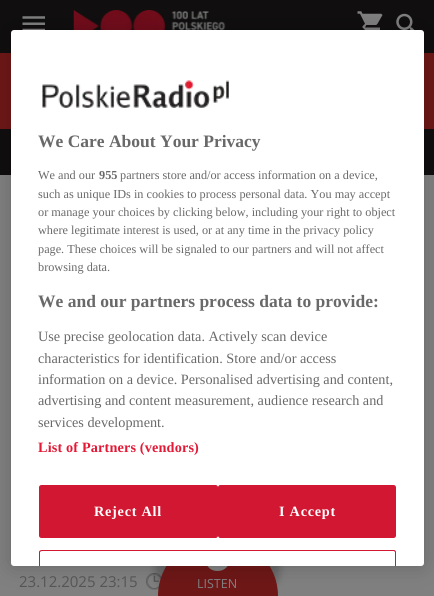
import math
import cairo



def draw_spaced(context, x, y, s, letter, word):
    context.move_to(x, y)
    for ch in s:
        context.show_text(ch)
        context.rel_move_to(letter + word * (ch == ' '), 0)


def rounded_rect(context, x, y, w, h, r):
    context.new_sub_path()
    for i, (u, v) in enumerate([(x + w - r, y + h - r), (x + r, y + h - r), (x + r, y + r), (x + w - r, y + r)]):
        context.arc(u, v, r, i * math.pi / 2, (i + 1) * math.pi / 2)
    context.close_path()


def draw_shadow(context, x, y, w, h, r, blur, alpha):
    context.push_group_with_content(cairo.Content.ALPHA)
    context.set_operator(cairo.Operator.SOURCE)
    for i in range(15, -16, -2):
        e = blur * i / 6
        if min(w, h) + 2 * e > 0:
            context.set_source_rgba(0, 0, 0, alpha * math.erfc((i - 1) / 8.5) / 2)
            rounded_rect(context, x - e, y - e, w + 2 * e, h + 2 * e, max(0, min(r + e + blur * .6, min(w, h) / 2 + e)))
            context.fill()
    context.mask(context.pop_group())


def draw_image(context, path, x, y, w, h):
    context.save()
    context.set_source_surface(cairo.ImageSurface.create_from_png(path), x, y)
    context.rectangle(x, y, w, h)
    context.fill()
    context.restore()


def draw(context):
    context.set_source_rgb(128 / 255, 128 / 255, 128 / 255)
    context.paint()
    draw_image(context, "images/2.png", 146, 573, 16, 17)
    context.set_source_rgb(16 / 255, 14 / 255, 14 / 255)
    context.rectangle(0, 0, 434, 175)
    context.fill()
    draw_image(context, "images/3.png", 22, 16, 23, 14)
    draw_image(context, "images/4.png", 73, 10, 153, 20)
    draw_image(context, "images/5.png", 357, 11, 26, 19)
    draw_image(context, "images/6.png", 396, 13, 19, 17)
    context.set_source_rgb(110 / 255, 23 / 255, 23 / 255)
    context.rectangle(0, 53, 434, 76)
    context.fill()
    context.set_source_rgb(0, 0, 0)
    draw_shadow(context, 155, 535, 125, 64, 61, 4, 0.21)
    context.set_source_rgb(110 / 255, 23 / 255, 23 / 255)
    context.new_path()
    context.move_to(216, 538)
    context.line_to(220, 538)
    context.curve_to(252, 538, 278, 564, 278, 596)
    context.line_to(158, 596)
    context.curve_to(158, 564, 184, 538, 216, 538)
    context.close_path()
    context.fill()
    context.set_source_rgb(128 / 255, 128 / 255, 128 / 255)
    context.new_path()
    context.move_to(217.5, 546)
    context.curve_to(201, 546, 201, 571, 217.5, 571)
    context.curve_to(234, 571, 234, 546, 217.5, 546)
    context.close_path()
    context.move_to(215, 564.5)
    context.line_to(215, 553)
    context.line_to(222.5, 559)
    context.close_path()
    context.fill()
    context.set_source_rgb(0, 0, 0)
    draw_shadow(context, 11, 30, 413, 536, 3, 11, 0.2)
    context.set_source_rgb(1, 1, 1)
    rounded_rect(context, 11, 30, 413, 536, 3)
    context.fill()
    draw_image(context, "images/1.png", 42, 80, 187, 28)
    context.set_source_rgb(210 / 255, 23 / 255, 51 / 255)
    rounded_rect(context, 39.5, 485.5, 178, 52, 2)
    context.fill_preserve()
    context.set_line_width(1)
    context.stroke()
    rounded_rect(context, 218.5, 485.5, 177, 52, 2)
    context.fill_preserve()
    context.stroke()
    context.new_path()
    context.move_to(42, 550)
    context.curve_to(40, 550, 39, 551, 39, 552)
    context.line_to(39, 566)
    context.line_to(40, 566)
    context.line_to(40, 552)
    context.curve_to(40, 552, 41, 551, 42, 551)
    context.line_to(394, 551)
    context.curve_to(394, 551, 395, 552, 395, 552)
    context.line_to(395, 566)
    context.line_to(396, 566)
    context.line_to(396, 552)
    context.curve_to(396, 551, 395, 550, 394, 550)
    context.close_path()
    context.fill()
    context.select_font_face("Liberation Serif", cairo.FontSlant.NORMAL, cairo.FontWeight.BOLD)
    context.set_font_size(17.5)
    context.set_source_rgb(105 / 255, 105 / 255, 105 / 255)
    context.move_to(38, 147)
    context.show_text("We Care About Your Privacy")
    context.select_font_face("Liberation Serif")
    context.set_font_size(12.25)
    context.move_to(38, 179)
    context.show_text("We and our")
    context.select_font_face("Liberation Serif", cairo.FontSlant.NORMAL, cairo.FontWeight.BOLD)
    context.move_to(99, 179)
    context.show_text("955")
    context.select_font_face("Liberation Serif")
    context.move_to(120, 179)
    context.show_text("partners store and/or access information on a device,")
    context.move_to(38, 198)
    context.show_text("such as unique IDs in cookies to process personal data. You may accept")
    context.move_to(38, 216)
    context.show_text("or manage your choices by clicking below, including your right to object")
    context.move_to(38, 234)
    context.show_text("where legitimate interest is used, or at any time in the privacy policy")
    context.move_to(38, 253)
    context.show_text("page. These choices will be signaled to our partners and will not affect")
    context.move_to(38, 271)
    context.show_text("browsing data.")
    context.select_font_face("Liberation Serif", cairo.FontSlant.NORMAL, cairo.FontWeight.BOLD)
    context.set_font_size(17.5)
    context.move_to(38, 307)
    context.show_text("We and our partners process data to provide:")
    context.select_font_face("Liberation Serif")
    context.set_font_size(14.25)
    context.move_to(38, 341)
    context.show_text("Use precise geolocation data. Actively scan device")
    context.move_to(38, 363)
    context.show_text("characteristics for identification. Store and/or access")
    context.move_to(38, 384)
    context.show_text("information on a device. Personalised advertising and content,")
    context.move_to(38, 405)
    context.show_text("advertising and content measurement, audience research and")
    context.move_to(38, 427)
    context.show_text("services development.")
    context.select_font_face("Liberation Serif", cairo.FontSlant.NORMAL, cairo.FontWeight.BOLD)
    context.set_source_rgb(227 / 255, 25 / 255, 54 / 255)
    draw_spaced(context, 38, 452, "List of Partners (vendors)", 0.15, 0)
    context.set_source_rgb(1, 1, 1)
    draw_spaced(context, 94, 516, "Reject All", 0.75, 0)
    draw_spaced(context, 279, 516, "I Accept", 0.75, 0)
    context.select_font_face("Open Sans")
    context.set_font_size(15)
    context.set_source_rgb(85 / 255, 85 / 255, 85 / 255)
    context.move_to(19, 587)
    context.show_text("23.12.2025 23:15")
    context.set_font_size(12.5)
    context.set_source_rgb(128 / 255, 128 / 255, 128 / 255)
    context.move_to(197, 588)
    context.show_text("LISTEN")


surface = cairo.ImageSurface(cairo.Format.RGB24, 434, 596)
context = cairo.Context(surface)
options = cairo.FontOptions()
options.set_hint_metrics(cairo.HintMetrics.OFF)
options.set_hint_style(cairo.HintStyle.NONE)
context.set_font_options(options)
context.set_miter_limit(4)
draw(context)
surface.write_to_png("out.png")
